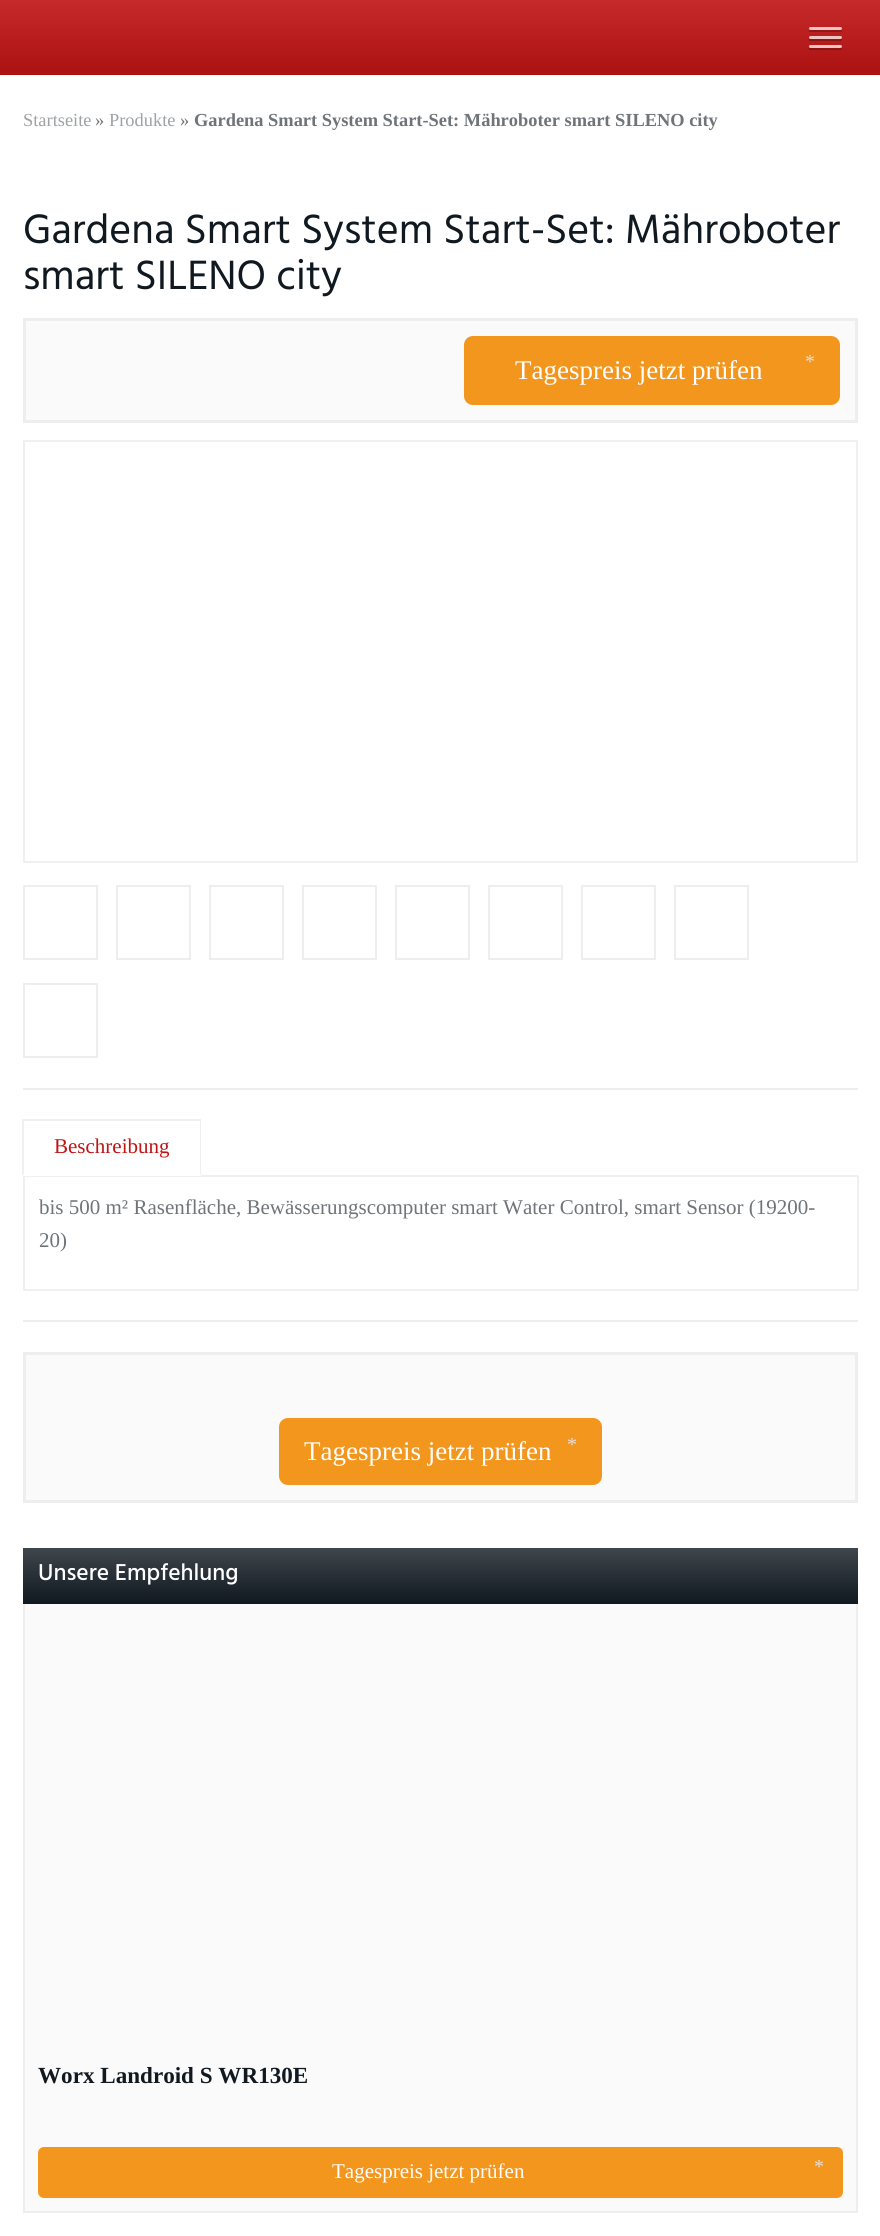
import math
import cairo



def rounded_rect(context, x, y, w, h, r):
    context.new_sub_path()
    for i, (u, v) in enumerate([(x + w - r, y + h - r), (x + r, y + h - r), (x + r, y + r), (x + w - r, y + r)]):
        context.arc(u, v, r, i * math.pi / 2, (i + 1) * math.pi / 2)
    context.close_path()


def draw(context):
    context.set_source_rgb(1, 1, 1)
    context.paint()
    gradient = cairo.LinearGradient(440, 0, 440, 75)
    gradient.add_color_stop_rgba(0, 198 / 255, 42 / 255, 42 / 255, 1)
    gradient.add_color_stop_rgba(1, 172 / 255, 17 / 255, 17 / 255, 1)
    context.set_source(gradient)
    context.rectangle(0, 0, 880, 75)
    context.fill()
    context.set_source_rgb(140 / 255, 24 / 255, 24 / 255)
    context.new_path()
    context.move_to(809, 30)
    context.curve_to(807.5, 32.5, 812, 32, 815.5, 32)
    context.line_to(841, 32)
    context.curve_to(842, 31.5, 842.5, 30, 841.5, 29)
    context.line_to(840, 30)
    context.curve_to(838, 30.5, 810, 30, 809, 30)
    context.close_path()
    context.fill()
    context.set_source_rgb(239 / 255, 196 / 255, 196 / 255)
    rounded_rect(context, 809, 27, 33, 3, 1.5)
    context.fill()
    context.set_source_rgb(138 / 255, 22 / 255, 22 / 255)
    context.new_path()
    context.move_to(809, 39)
    context.curve_to(807.5, 41.5, 812, 41, 815.5, 41)
    context.line_to(841, 41)
    context.curve_to(842, 40.5, 842.5, 39, 841.5, 38)
    context.line_to(840, 39)
    context.curve_to(838, 39.5, 810, 39, 809, 39)
    context.close_path()
    context.fill()
    context.set_source_rgb(239 / 255, 196 / 255, 196 / 255)
    rounded_rect(context, 809, 36, 33, 3, 1.5)
    context.fill()
    context.set_source_rgb(136 / 255, 20 / 255, 20 / 255)
    context.new_path()
    context.move_to(809, 48)
    context.curve_to(807.5, 50.5, 812, 50, 815.5, 50)
    context.line_to(841, 50)
    context.curve_to(842, 49.5, 842.5, 48, 841.5, 47)
    context.line_to(840, 48)
    context.curve_to(838, 48.5, 810, 48, 809, 48)
    context.close_path()
    context.fill()
    context.set_source_rgb(239 / 255, 196 / 255, 196 / 255)
    rounded_rect(context, 809, 45, 33, 3, 1.5)
    context.fill()
    context.set_source_rgb(250 / 255, 250 / 255, 250 / 255)
    context.rectangle(24.5, 319.5, 832, 102)
    context.fill_preserve()
    context.set_source_rgb(238 / 255, 238 / 255, 238 / 255)
    context.set_line_width(3)
    context.stroke()
    context.set_source_rgb(243 / 255, 150 / 255, 29 / 255)
    rounded_rect(context, 465, 337, 374, 67, 8)
    context.fill_preserve()
    context.set_line_width(2)
    context.stroke()
    context.rectangle(24, 441, 833, 421)
    context.set_source_rgb(240 / 255, 240 / 255, 240 / 255)
    context.stroke()
    context.rectangle(24, 886, 73, 73)
    context.set_source_rgb(238 / 255, 238 / 255, 238 / 255)
    context.stroke()
    context.rectangle(117, 886, 73, 73)
    context.stroke()
    context.rectangle(210, 886, 73, 73)
    context.stroke()
    context.rectangle(303, 886, 73, 73)
    context.stroke()
    context.rectangle(396, 886, 73, 73)
    context.stroke()
    context.rectangle(489, 886, 73, 73)
    context.stroke()
    context.rectangle(582, 886, 73, 73)
    context.stroke()
    context.rectangle(675, 886, 73, 73)
    context.stroke()
    context.rectangle(24, 984, 73, 73)
    context.stroke()
    context.rectangle(23, 1088, 835, 2)
    context.fill()
    context.set_source_rgb(240 / 255, 240 / 255, 240 / 255)
    context.rectangle(23, 1175, 835, 2)
    context.fill()
    context.set_source_rgb(1, 1, 1)
    context.rectangle(23, 1175, 178, 1)
    context.fill()
    context.set_source_rgb(240 / 255, 240 / 255, 240 / 255)
    context.rectangle(23, 1119, 178, 2)
    context.fill()
    context.new_path()
    context.move_to(201, 1119)
    context.line_to(201, 1176)
    context.line_to(200, 1174)
    context.line_to(200, 1120)
    context.close_path()
    context.fill()
    context.new_path()
    context.move_to(22, 1176)
    context.line_to(22, 1119)
    context.line_to(24, 1120)
    context.line_to(24, 1174)
    context.close_path()
    context.fill()
    context.rectangle(857, 1176, 2, 114)
    context.fill()
    context.rectangle(23, 1289, 835, 2)
    context.fill()
    context.rectangle(23, 1176, 2, 114)
    context.fill()
    context.set_source_rgb(238 / 255, 238 / 255, 238 / 255)
    context.rectangle(23, 1320, 835, 2)
    context.fill()
    context.set_source_rgb(250 / 255, 250 / 255, 250 / 255)
    context.rectangle(24.5, 1353.5, 832, 148)
    context.fill_preserve()
    context.set_source_rgb(238 / 255, 238 / 255, 238 / 255)
    context.set_line_width(3)
    context.stroke()
    context.set_source_rgb(243 / 255, 150 / 255, 29 / 255)
    rounded_rect(context, 280, 1419, 321, 65, 8)
    context.fill_preserve()
    context.set_line_width(2)
    context.stroke()
    context.set_source_rgb(250 / 255, 250 / 255, 250 / 255)
    context.rectangle(25, 1604, 831, 607)
    context.fill()
    context.rectangle(24, 1549, 833, 663)
    context.set_source_rgb(238 / 255, 238 / 255, 238 / 255)
    context.stroke()
    gradient = cairo.LinearGradient(440, 1548, 440, 1604)
    gradient.add_color_stop_rgba(0, 63 / 255, 70 / 255, 76 / 255, 1)
    gradient.add_color_stop_rgba(1, 16 / 255, 24 / 255, 32 / 255, 1)
    context.set_source(gradient)
    context.rectangle(23, 1548, 835, 56)
    context.fill()
    context.set_source_rgb(243 / 255, 150 / 255, 29 / 255)
    rounded_rect(context, 39, 2148, 803, 49, 5)
    context.fill_preserve()
    context.stroke()
    context.select_font_face("Liberation Serif")
    context.set_font_size(18.4)
    context.set_source_rgb(159 / 255, 162 / 255, 165 / 255)
    context.move_to(23, 126)
    context.show_text("Startseite")
    context.set_source_rgb(111 / 255, 116 / 255, 121 / 255)
    context.move_to(95, 126)
    context.show_text("»")
    context.set_source_rgb(159 / 255, 162 / 255, 165 / 255)
    context.move_to(109, 126)
    context.show_text("Produkte")
    context.set_source_rgb(111 / 255, 116 / 255, 121 / 255)
    context.move_to(180, 126)
    context.show_text("»")
    context.select_font_face("Liberation Serif", cairo.FontSlant.NORMAL, cairo.FontWeight.BOLD)
    context.move_to(194, 126)
    context.show_text("Gardena Smart System Start-Set: Mähroboter smart SILENO city")
    context.select_font_face("Hind")
    context.set_font_size(42)
    context.set_source_rgb(16 / 255, 24 / 255, 32 / 255)
    context.move_to(23, 243)
    context.show_text("Gardena Smart System Start-Set: Mähroboter")
    context.move_to(23, 289)
    context.show_text("smart SILENO city")
    context.select_font_face("Liberation Serif")
    context.set_font_size(20)
    context.set_source_rgb(225 / 255, 225 / 255, 225 / 255)
    context.move_to(805, 368)
    context.show_text("*")
    context.set_font_size(27)
    context.set_source_rgb(1, 1, 1)
    context.move_to(515, 379)
    context.show_text("Tagespreis jetzt prüfen")
    context.set_font_size(21)
    context.set_source_rgb(192 / 255, 19 / 255, 19 / 255)
    context.move_to(54, 1153)
    context.show_text("Beschreibung")
    context.set_source_rgb(111 / 255, 116 / 255, 121 / 255)
    context.move_to(39, 1214)
    context.show_text("bis 500 m² Rasenfläche, Bewässerungscomputer smart Water Control, smart Sensor (19200-")
    context.move_to(39, 1247)
    context.show_text("20)")
    context.set_font_size(27)
    context.set_source_rgb(1, 1, 1)
    context.move_to(304, 1460)
    context.show_text("Tagespreis jetzt prüfen")
    context.set_font_size(20)
    context.set_source_rgb(225 / 255, 225 / 255, 225 / 255)
    context.move_to(567, 1451)
    context.show_text("*")
    context.select_font_face("Hind Medium")
    context.set_font_size(23.6)
    context.set_source_rgb(1, 1, 1)
    context.move_to(38, 1580)
    context.show_text("Unsere Empfehlung")
    context.select_font_face("Liberation Serif", cairo.FontSlant.NORMAL, cairo.FontWeight.BOLD)
    context.set_font_size(23.1)
    context.set_source_rgb(16 / 255, 24 / 255, 32 / 255)
    context.move_to(38, 2083)
    context.show_text("Worx Landroid S WR130E")
    context.select_font_face("Liberation Serif")
    context.set_font_size(21)
    context.set_source_rgb(1, 1, 1)
    context.move_to(332, 2178)
    context.show_text("Tagespreis jetzt prüfen")
    context.set_font_size(20)
    context.set_source_rgb(225 / 255, 225 / 255, 225 / 255)
    context.move_to(814, 2173)
    context.show_text("*")


surface = cairo.ImageSurface(cairo.Format.RGB24, 880, 2236)
context = cairo.Context(surface)
options = cairo.FontOptions()
options.set_hint_metrics(cairo.HintMetrics.OFF)
options.set_hint_style(cairo.HintStyle.NONE)
context.set_font_options(options)
context.set_miter_limit(4)
draw(context)
surface.write_to_png("out.png")
